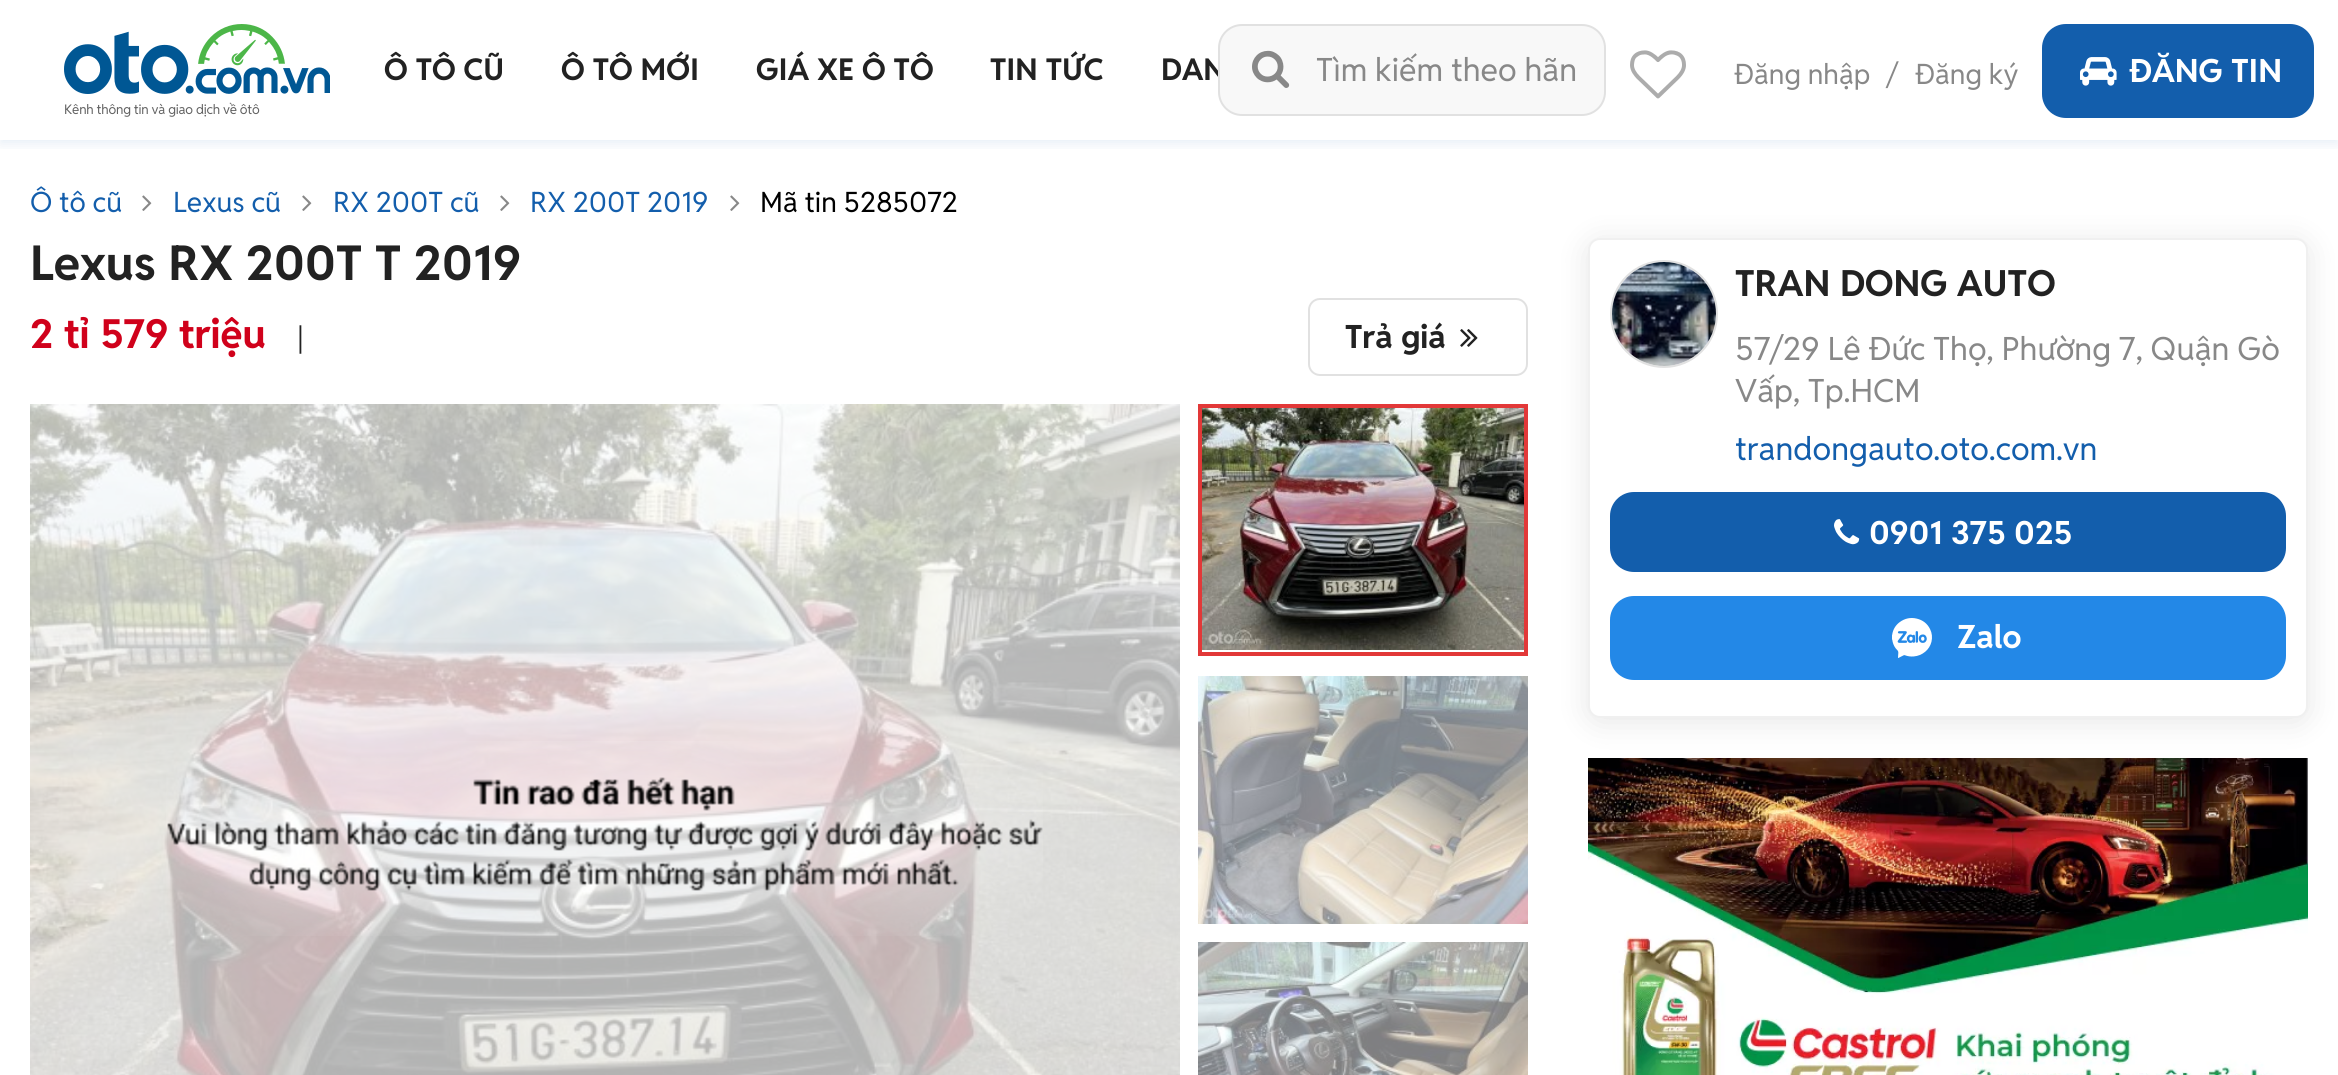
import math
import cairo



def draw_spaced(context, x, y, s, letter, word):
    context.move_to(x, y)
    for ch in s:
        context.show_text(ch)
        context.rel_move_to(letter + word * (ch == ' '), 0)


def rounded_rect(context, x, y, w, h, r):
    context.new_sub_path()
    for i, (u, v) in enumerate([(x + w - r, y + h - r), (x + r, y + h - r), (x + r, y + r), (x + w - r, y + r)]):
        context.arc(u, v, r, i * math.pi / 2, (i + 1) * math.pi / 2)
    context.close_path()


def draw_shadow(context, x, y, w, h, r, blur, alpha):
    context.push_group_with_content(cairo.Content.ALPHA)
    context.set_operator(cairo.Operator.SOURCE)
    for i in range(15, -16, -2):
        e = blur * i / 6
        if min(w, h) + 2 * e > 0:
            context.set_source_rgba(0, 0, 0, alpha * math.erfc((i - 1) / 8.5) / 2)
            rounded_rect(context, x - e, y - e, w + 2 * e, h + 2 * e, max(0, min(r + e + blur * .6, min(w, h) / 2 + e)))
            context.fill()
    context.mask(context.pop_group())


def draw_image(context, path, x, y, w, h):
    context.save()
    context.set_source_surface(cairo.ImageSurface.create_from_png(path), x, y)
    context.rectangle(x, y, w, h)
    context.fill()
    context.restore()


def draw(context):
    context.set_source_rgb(1, 1, 1)
    context.paint()
    context.save()
    context.rectangle(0, 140, 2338, 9)
    context.clip()
    context.set_source_rgb(19 / 255, 94 / 255, 172 / 255)
    draw_shadow(context, 0, 4, 2338, 140, 0, 6, 0.1)
    context.restore()
    draw_image(context, "images/2.png", 1630, 50, 56, 49)
    context.set_source_rgb(19 / 255, 94 / 255, 172 / 255)
    rounded_rect(context, 2042, 24, 272, 94, 24)
    context.fill()
    draw_image(context, "images/3.png", 2080, 57, 37, 29)
    draw_image(context, "images/4.png", 64, 24, 266, 70)
    draw_image(context, "images/5.png", 142, 195, 10, 16)
    draw_image(context, "images/5.png", 302, 195, 10, 16)
    draw_image(context, "images/5.png", 500, 195, 10, 16)
    draw_image(context, "images/5.png", 730, 195, 10, 16)
    rounded_rect(context, 1309, 299, 218, 76, 11)
    context.set_source_rgb(225 / 255, 225 / 255, 225 / 255)
    context.stroke()
    draw_image(context, "images/6.png", 1460, 329, 18, 18)
    draw_image(context, "images/7.png", 30, 404, 1150, 671)
    draw_image(context, "images/8.png", 166, 741, 877, 195)
    context.rectangle(1200, 406, 326, 248)
    context.set_source_rgb(226 / 255, 56 / 255, 56 / 255)
    context.set_line_width(4)
    context.stroke()
    draw_image(context, "images/9.png", 1202, 408, 322, 242)
    draw_image(context, "images/10.png", 1198, 676, 330, 248)
    draw_image(context, "images/11.png", 1198, 942, 330, 133)
    draw_image(context, "images/15.png", 1588, 758, 720, 317)
    context.set_source_rgb(0, 0, 0)
    draw_shadow(context, 1588, 242, 720, 480, 12, 15, 0.1)
    context.set_source_rgb(1, 1, 1)
    rounded_rect(context, 1589, 239, 718, 478, 11)
    context.fill_preserve()
    context.set_source_rgb(240 / 255, 240 / 255, 240 / 255)
    context.set_line_width(2)
    context.stroke()
    context.arc(1664, 314, 53, 0, 2 * math.pi)
    context.set_source_rgb(225 / 255, 225 / 255, 225 / 255)
    context.stroke()
    draw_image(context, "images/12.png", 1612, 262, 104, 104)
    context.set_source_rgb(19 / 255, 94 / 255, 172 / 255)
    rounded_rect(context, 1610, 492, 676, 80, 24)
    context.fill()
    draw_image(context, "images/13.png", 1834, 519, 26, 26)
    context.set_source_rgb(35 / 255, 136 / 255, 231 / 255)
    rounded_rect(context, 1610, 596, 676, 84, 24)
    context.fill()
    draw_image(context, "images/14.png", 1892, 618, 40, 40)
    context.select_font_face("Reddit Sans", cairo.FontSlant.NORMAL, cairo.FontWeight.BOLD)
    context.set_font_size(30)
    context.set_source_rgb(34 / 255, 34 / 255, 34 / 255)
    context.move_to(384, 80)
    context.show_text("Ô TÔ CŨ")
    context.move_to(561, 80)
    context.show_text("Ô TÔ MỚI")
    context.move_to(756, 80)
    context.show_text("GIÁ XE Ô TÔ")
    context.move_to(990, 80)
    context.show_text("TIN TỨC")
    context.move_to(1161, 80)
    context.show_text("DAN")
    context.set_source_rgb(1, 1, 1)
    context.rectangle(1218, 58, 6, 22)
    context.fill()
    context.set_source_rgb(248 / 255, 248 / 255, 248 / 255)
    rounded_rect(context, 1219, 25, 386, 90, 23)
    context.fill_preserve()
    context.set_source_rgb(225 / 255, 225 / 255, 225 / 255)
    context.stroke()
    draw_image(context, "images/1.png", 1252, 50, 38, 38)
    context.select_font_face("Reddit Sans")
    context.set_font_size(32)
    context.set_source_rgb(136 / 255, 136 / 255, 136 / 255)
    context.move_to(1316, 81)
    context.show_text("Tìm kiếm theo hãn")
    context.set_font_size(28)
    context.move_to(1734, 84)
    context.show_text("Đăng nhập")
    context.move_to(1887, 84)
    context.show_text("/")
    context.move_to(1915, 84)
    context.show_text("Đăng ký")
    context.select_font_face("Reddit Sans", cairo.FontSlant.NORMAL, cairo.FontWeight.BOLD)
    context.set_font_size(32)
    context.set_source_rgb(1, 1, 1)
    context.move_to(2129, 82)
    context.show_text("ĐĂNG TIN")
    context.select_font_face("Reddit Sans")
    context.set_font_size(13.25)
    context.set_source_rgb(100 / 255, 100 / 255, 100 / 255)
    draw_spaced(context, 64, 114, "Kênh thông tin và giao dịch về ôtô", -0.2, 0)
    context.set_font_size(28)
    context.set_source_rgb(19 / 255, 94 / 255, 172 / 255)
    context.move_to(30, 212)
    context.show_text("Ô tô cũ")
    context.move_to(173, 212)
    context.show_text("Lexus cũ")
    context.move_to(333, 212)
    context.show_text("RX 200T cũ")
    context.move_to(530, 212)
    context.show_text("RX 200T 2019")
    context.set_source_rgb(0, 0, 0)
    context.move_to(760, 212)
    context.show_text("Mã tin 5285072")
    context.select_font_face("Reddit Sans", cairo.FontSlant.NORMAL, cairo.FontWeight.BOLD)
    context.set_font_size(48)
    context.set_source_rgb(34 / 255, 34 / 255, 34 / 255)
    context.move_to(30, 280)
    context.show_text("Lexus RX 200T T 2019")
    context.set_font_size(40)
    context.set_source_rgb(208 / 255, 1 / 255, 27 / 255)
    context.move_to(30, 348)
    context.show_text("2 tỉ 579 triệu")
    context.select_font_face("Reddit Sans")
    context.set_font_size(28)
    context.set_source_rgb(34 / 255, 34 / 255, 34 / 255)
    context.move_to(297, 348)
    context.show_text("|")
    context.select_font_face("Reddit Sans", cairo.FontSlant.NORMAL, cairo.FontWeight.BOLD)
    context.set_font_size(32)
    context.move_to(1345, 348)
    context.show_text("Trả giá")
    context.set_font_size(36)
    context.move_to(1735, 296)
    context.show_text("TRAN DONG AUTO")
    context.select_font_face("Reddit Sans")
    context.set_font_size(32)
    context.set_source_rgb(136 / 255, 136 / 255, 136 / 255)
    context.move_to(1735, 360)
    context.show_text("57/29 Lê Đức Thọ, Phường 7, Quận Gò")
    context.move_to(1735, 402)
    context.show_text("Vấp, Tp.HCM")
    context.set_source_rgb(19 / 255, 94 / 255, 172 / 255)
    context.move_to(1735, 460)
    context.show_text("trandongauto.oto.com.vn")
    context.select_font_face("Reddit Sans", cairo.FontSlant.NORMAL, cairo.FontWeight.BOLD)
    context.set_source_rgb(1, 1, 1)
    context.move_to(1869, 544)
    context.show_text("0901 375 025")
    context.move_to(1957, 648)
    context.show_text("Zalo")


surface = cairo.ImageSurface(cairo.Format.RGB24, 2338, 1075)
context = cairo.Context(surface)
options = cairo.FontOptions()
options.set_hint_metrics(cairo.HintMetrics.OFF)
options.set_hint_style(cairo.HintStyle.NONE)
context.set_font_options(options)
context.set_miter_limit(4)
draw(context)
surface.write_to_png("out.png")
